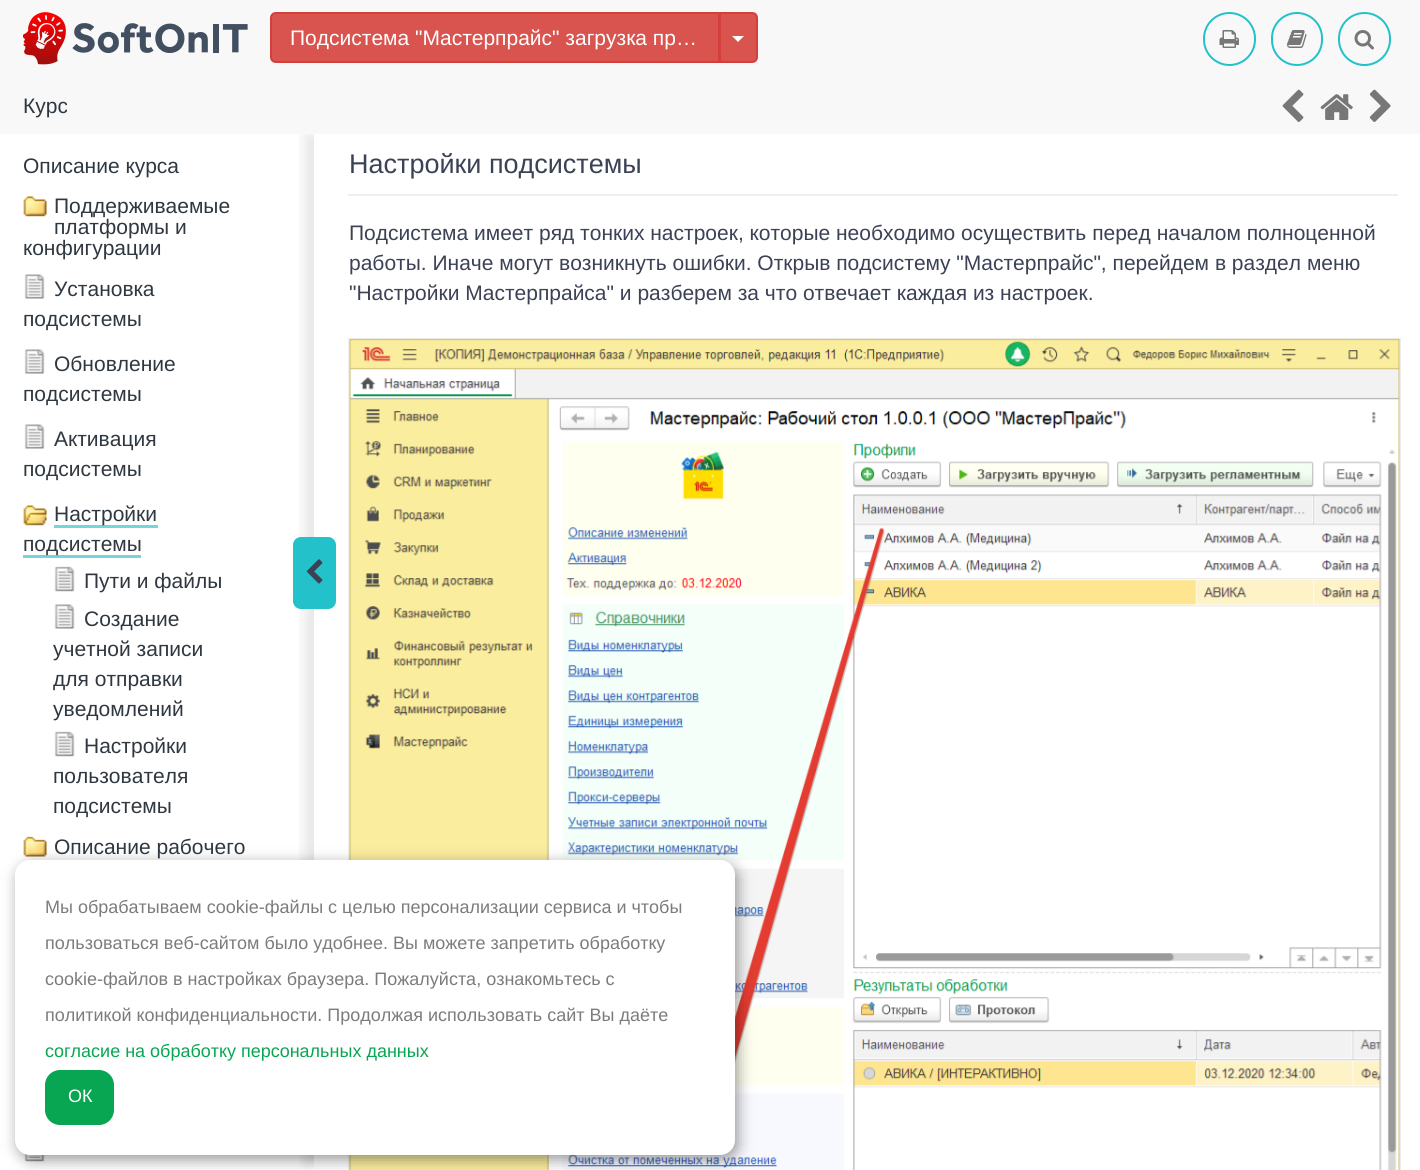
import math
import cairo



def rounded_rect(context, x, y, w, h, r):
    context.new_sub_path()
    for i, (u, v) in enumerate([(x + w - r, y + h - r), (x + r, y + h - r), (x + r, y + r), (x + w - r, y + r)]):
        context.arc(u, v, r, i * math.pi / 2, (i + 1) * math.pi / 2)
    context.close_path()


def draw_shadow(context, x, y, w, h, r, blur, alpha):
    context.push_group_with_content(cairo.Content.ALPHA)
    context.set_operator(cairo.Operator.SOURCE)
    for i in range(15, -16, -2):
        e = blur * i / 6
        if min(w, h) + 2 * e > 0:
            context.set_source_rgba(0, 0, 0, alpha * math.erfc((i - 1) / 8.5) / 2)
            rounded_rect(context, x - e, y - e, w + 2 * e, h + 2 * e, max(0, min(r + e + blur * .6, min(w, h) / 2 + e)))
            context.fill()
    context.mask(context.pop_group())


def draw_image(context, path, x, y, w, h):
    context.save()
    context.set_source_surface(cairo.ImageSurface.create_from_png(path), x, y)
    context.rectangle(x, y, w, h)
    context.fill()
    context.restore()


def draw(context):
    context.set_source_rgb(1, 1, 1)
    context.paint()
    context.save()
    context.rectangle(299, 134, 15, 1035)
    context.clip()
    context.set_source_rgb(0, 0, 0)
    draw_shadow(context, 305, 134, 1095, 1030, 0, 7, 0.1)
    context.restore()
    context.set_source_rgb(248 / 255, 248 / 255, 248 / 255)
    context.rectangle(0, 0, 1420, 134)
    context.fill()
    draw_image(context, "images/1.png", 23, 12, 225, 53)
    context.set_source_rgb(217 / 255, 83 / 255, 79 / 255)
    context.new_path()
    context.move_to(276, 13)
    context.line_to(719, 13)
    context.line_to(719, 62)
    context.line_to(276, 62)
    context.curve_to(273, 62, 271, 60, 271, 57)
    context.line_to(271, 18)
    context.curve_to(271, 15, 273, 13, 276, 13)
    context.close_path()
    context.fill_preserve()
    context.set_source_rgb(212 / 255, 63 / 255, 58 / 255)
    context.stroke()
    context.set_source_rgb(217 / 255, 83 / 255, 79 / 255)
    context.new_path()
    context.move_to(720, 13)
    context.line_to(752, 13)
    context.curve_to(755, 13, 757, 15, 757, 18)
    context.line_to(757, 57)
    context.curve_to(757, 60, 755, 62, 752, 62)
    context.line_to(720, 62)
    context.close_path()
    context.fill_preserve()
    context.set_source_rgb(212 / 255, 63 / 255, 58 / 255)
    context.stroke()
    context.set_source_rgb(1, 1, 1)
    context.new_path()
    context.move_to(732, 36)
    context.line_to(744, 36)
    context.line_to(738, 42)
    context.close_path()
    context.fill()
    rounded_rect(context, 1204, 13, 51, 52, 25.5)
    context.set_source_rgb(35 / 255, 193 / 255, 202 / 255)
    context.stroke()
    draw_image(context, "images/2.png", 1219, 30, 20, 18)
    rounded_rect(context, 1272, 13, 50, 52, 25)
    context.stroke()
    draw_image(context, "images/3.png", 1287, 30, 20, 18)
    rounded_rect(context, 1339, 13, 51, 52, 25.5)
    context.stroke()
    draw_image(context, "images/4.png", 1354, 30, 20, 20)
    draw_image(context, "images/5.png", 1282, 89, 22, 33)
    draw_image(context, "images/6.png", 1320, 94, 33, 26)
    draw_image(context, "images/7.png", 1369, 89, 22, 33)
    draw_image(context, "images/8.png", 23, 196, 24, 21)
    draw_image(context, "images/9.png", 24, 274, 21, 25)
    draw_image(context, "images/9.png", 24, 349, 21, 25)
    draw_image(context, "images/9.png", 24, 424, 21, 25)
    draw_image(context, "images/10.png", 23, 505, 24, 21)
    context.set_source_rgb(114 / 255, 214 / 255, 219 / 255)
    context.rectangle(54, 525, 104, 3)
    context.fill()
    context.rectangle(23, 555, 118, 3)
    context.fill()
    draw_image(context, "images/11.png", 54, 566, 21, 26)
    draw_image(context, "images/9.png", 54, 604, 21, 25)
    draw_image(context, "images/11.png", 54, 731, 21, 26)
    draw_image(context, "images/12.png", 23, 836, 24, 21)
    draw_image(context, "images/13.png", 24, 1153, 21, 9)
    context.set_source_rgb(238 / 255, 238 / 255, 238 / 255)
    context.rectangle(348, 194, 1050, 2)
    context.fill()
    context.rectangle(349, 339, 1051, 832)
    context.stroke()
    draw_image(context, "images/14.png", 349, 338, 1052, 832)
    context.set_source_rgb(35 / 255, 193 / 255, 202 / 255)
    rounded_rect(context, 293, 537, 43, 72, 8)
    context.fill()
    draw_image(context, "images/15.png", 306, 559, 17, 25)
    context.set_source_rgb(0, 0, 0)
    draw_shadow(context, 18, 864, 720, 296, 15, 7.5, 0.4)
    context.set_source_rgb(1, 1, 1)
    rounded_rect(context, 15, 860, 720, 295, 15)
    context.fill()
    context.set_source_rgb(8 / 255, 166 / 255, 82 / 255)
    rounded_rect(context, 45, 1070, 69, 55, 15)
    context.fill()
    context.select_font_face("Liberation Sans")
    context.set_font_size(21)
    context.set_source_rgb(1, 1, 1)
    context.move_to(290, 45)
    context.show_text("Подсистема \"Мастерпрайс\" загрузка пр…")
    context.set_source_rgb(47 / 255, 56 / 255, 64 / 255)
    context.move_to(23, 113)
    context.show_text("Курс")
    context.move_to(23, 173)
    context.show_text("Описание курса")
    context.move_to(54, 213)
    context.show_text("Поддерживаемые")
    context.move_to(54, 234)
    context.show_text("платформы и")
    context.move_to(23, 255)
    context.show_text("конфигурации")
    context.move_to(54, 296)
    context.show_text("Установка")
    context.move_to(23, 326)
    context.show_text("подсистемы")
    context.move_to(54, 371)
    context.show_text("Обновление")
    context.move_to(23, 401)
    context.show_text("подсистемы")
    context.move_to(54, 446)
    context.show_text("Активация")
    context.move_to(23, 476)
    context.show_text("подсистемы")
    context.move_to(54, 521)
    context.show_text("Настройки")
    context.move_to(23, 551)
    context.show_text("подсистемы")
    context.move_to(84, 588)
    context.show_text("Пути и файлы")
    context.move_to(84, 626)
    context.show_text("Создание")
    context.move_to(53, 656)
    context.show_text("учетной записи")
    context.move_to(53, 686)
    context.show_text("для отправки")
    context.move_to(53, 716)
    context.show_text("уведомлений")
    context.move_to(84, 753)
    context.show_text("Настройки")
    context.move_to(53, 783)
    context.show_text("пользователя")
    context.move_to(53, 813)
    context.show_text("подсистемы")
    context.move_to(54, 854)
    context.show_text("Описание рабочего")
    context.set_font_size(27)
    context.set_source_rgb(59 / 255, 66 / 255, 85 / 255)
    context.move_to(349, 173)
    context.show_text("Настройки подсистемы")
    context.set_font_size(21)
    context.move_to(349, 240)
    context.show_text("Подсистема имеет ряд тонких настроек, которые необходимо осуществить перед началом полноценной")
    context.move_to(349, 270)
    context.show_text("работы. Иначе могут возникнуть ошибки. Открыв подсистему \"Мастерпрайс\", перейдем в раздел меню")
    context.move_to(349, 300)
    context.show_text("\"Настройки Мастерпрайса\" и разберем за что отвечает каждая из настроек.")
    context.set_font_size(18)
    context.set_source_rgb(124 / 255, 124 / 255, 124 / 255)
    context.move_to(45, 913)
    context.show_text("Мы обрабатываем cookie-файлы с целью персонализации сервиса и чтобы")
    context.move_to(45, 949)
    context.show_text("пользоваться веб-сайтом было удобнее. Вы можете запретить обработку")
    context.move_to(45, 985)
    context.show_text("cookie-файлов в настройках браузера. Пожалуйста, ознакомьтесь с")
    context.move_to(45, 1021)
    context.show_text("политикой конфиденциальности. Продолжая использовать сайт Вы даёте")
    context.set_source_rgb(8 / 255, 166 / 255, 82 / 255)
    context.move_to(45, 1057)
    context.show_text("согласие на обработку персональных данных")
    context.set_source_rgb(1, 1, 1)
    context.move_to(68, 1102)
    context.show_text("ОК")


surface = cairo.ImageSurface(cairo.Format.RGB24, 1420, 1170)
context = cairo.Context(surface)
options = cairo.FontOptions()
options.set_hint_metrics(cairo.HintMetrics.OFF)
options.set_hint_style(cairo.HintStyle.NONE)
context.set_font_options(options)
context.set_miter_limit(4)
draw(context)
surface.write_to_png("out.png")
